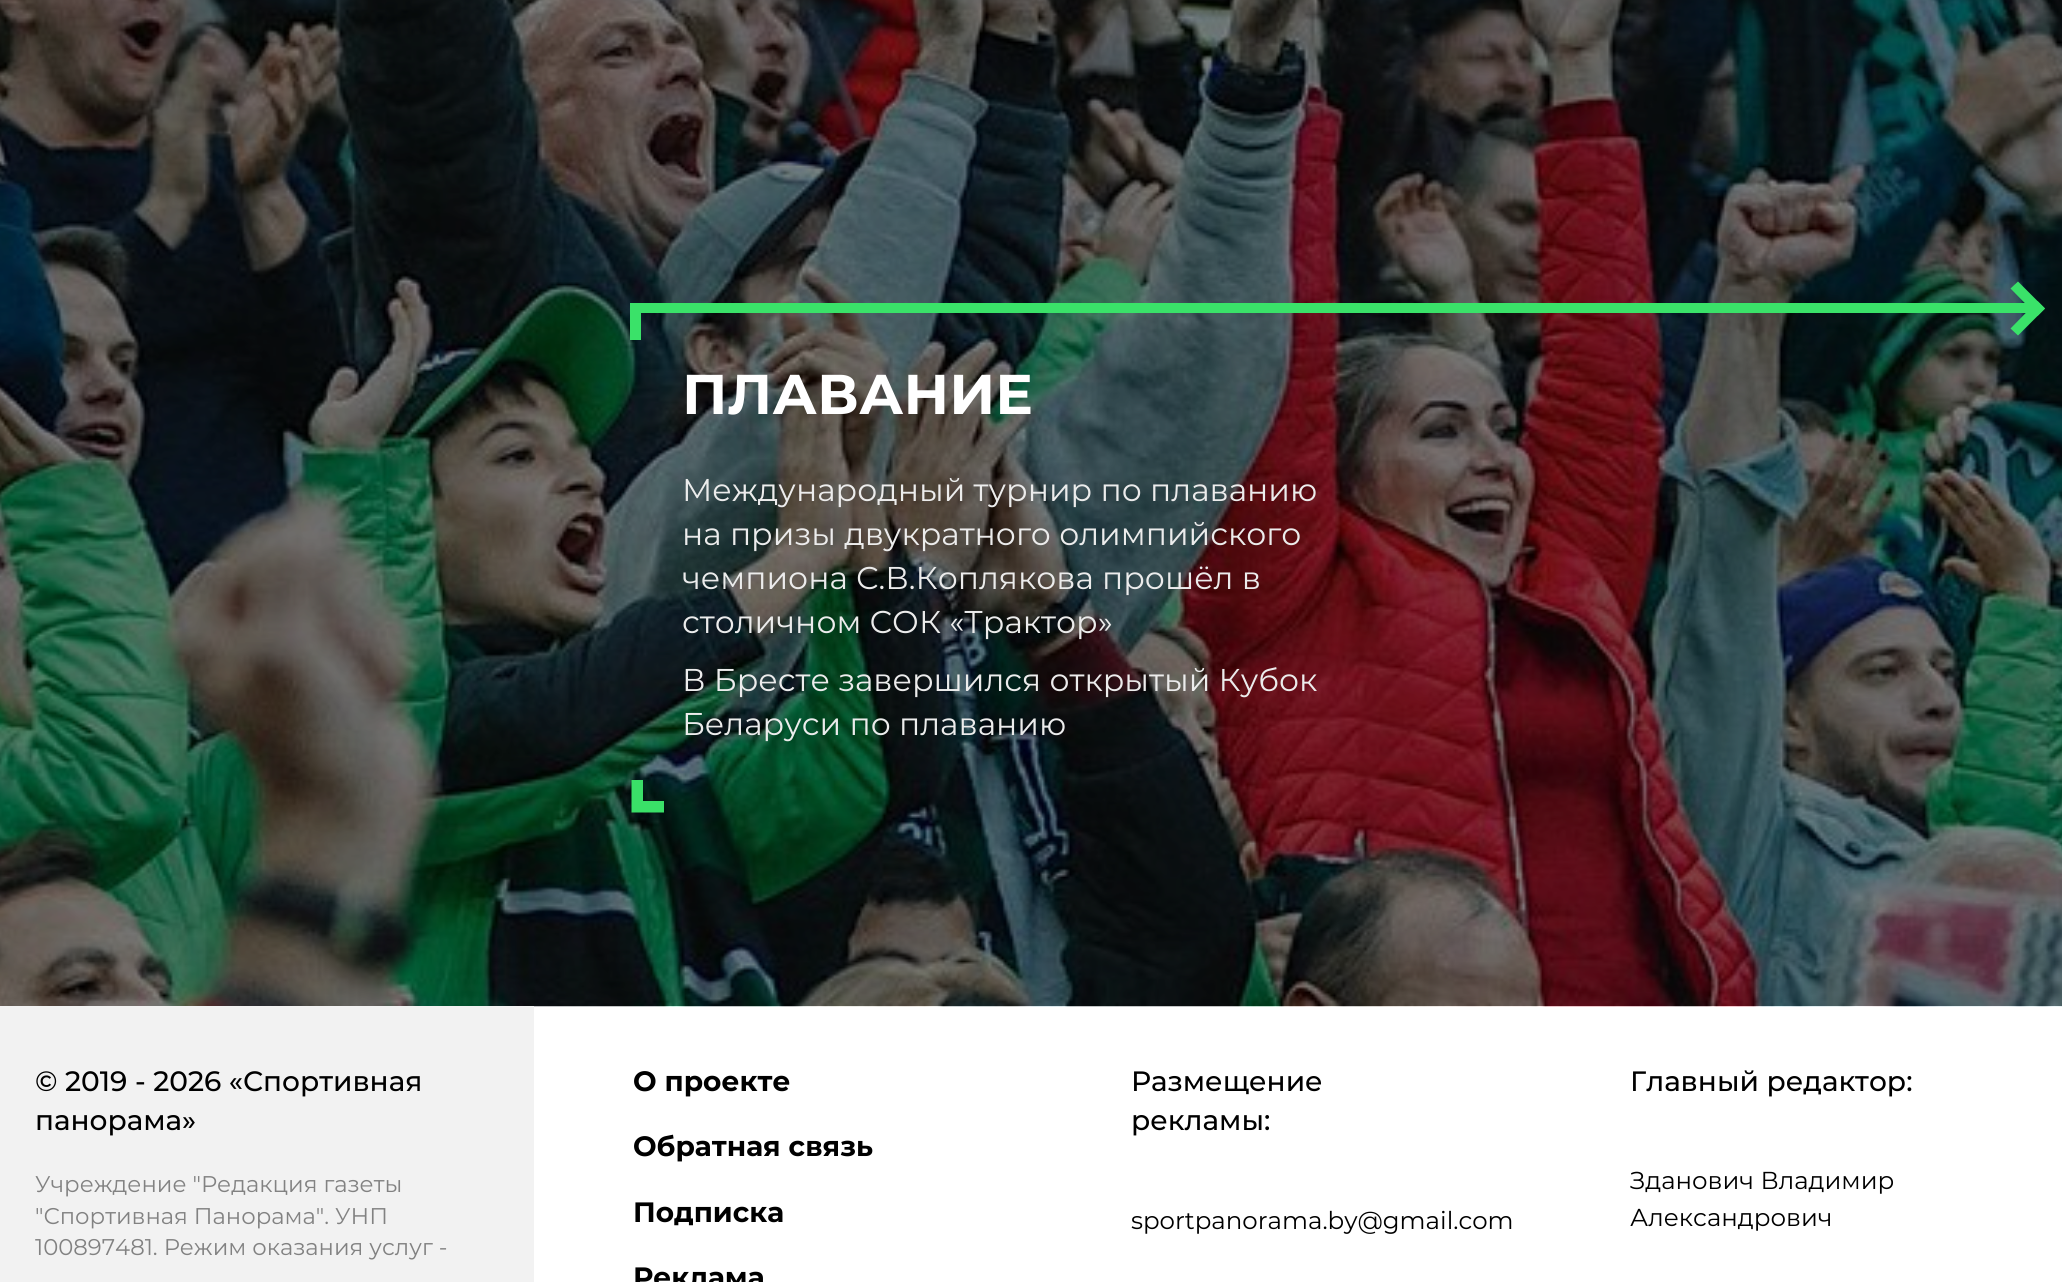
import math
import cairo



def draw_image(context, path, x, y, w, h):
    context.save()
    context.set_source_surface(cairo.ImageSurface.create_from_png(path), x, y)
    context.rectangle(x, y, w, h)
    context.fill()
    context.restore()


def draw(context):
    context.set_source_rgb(1, 1, 1)
    context.paint()
    draw_image(context, "images/1.png", 0, 0, 2062, 1007)
    context.set_source_rgb(58 / 255, 224 / 255, 104 / 255)
    context.new_path()
    context.move_to(643, 801)
    context.line_to(643, 780)
    context.line_to(631.5, 780)
    context.line_to(631.5, 812.5)
    context.line_to(664, 812.5)
    context.line_to(664, 801)
    context.close_path()
    context.fill()
    context.set_source_rgb(58 / 255, 226 / 255, 105 / 255)
    context.rectangle(641, 303, 1390, 10)
    context.fill()
    context.new_path()
    context.move_to(2018, 281.5)
    context.line_to(2045, 308.5)
    context.line_to(2037.5, 316)
    context.line_to(2010.5, 288.5)
    context.close_path()
    context.fill()
    context.new_path()
    context.move_to(2037.5, 301)
    context.line_to(2045, 308.5)
    context.line_to(2018, 335.5)
    context.line_to(2010.5, 328.5)
    context.close_path()
    context.fill()
    context.rectangle(630, 303, 11, 37)
    context.fill()
    context.set_source_rgb(242 / 255, 242 / 255, 242 / 255)
    context.rectangle(0, 1006, 534, 276)
    context.fill()
    context.select_font_face("Montserrat", cairo.FontSlant.NORMAL, cairo.FontWeight.BOLD)
    context.set_font_size(56)
    context.set_source_rgb(1, 1, 1)
    context.move_to(682, 414)
    context.show_text("ПЛАВАНИЕ")
    context.select_font_face("Montserrat")
    context.set_font_size(31.5)
    context.set_source_rgb(236 / 255, 236 / 255, 236 / 255)
    context.move_to(682, 501)
    context.show_text("Международный турнир по плаванию")
    context.move_to(682, 545)
    context.show_text("на призы двукратного олимпийского")
    context.move_to(682, 589)
    context.show_text("чемпиона С.В.Коплякова прошёл в")
    context.move_to(682, 633)
    context.show_text("столичном СОК «Трактор»")
    context.move_to(682, 691)
    context.show_text("В Бресте завершился открытый Кубок")
    context.move_to(682, 735)
    context.show_text("Беларуси по плаванию")
    context.select_font_face("Montserrat Medium")
    context.set_font_size(28)
    context.set_source_rgb(0, 0, 0)
    context.move_to(35, 1091)
    context.show_text("© 2019 - 2026 «Спортивная")
    context.move_to(35, 1130)
    context.show_text("панорама»")
    context.select_font_face("Montserrat")
    context.set_font_size(22.75)
    context.set_source_rgb(130 / 255, 130 / 255, 130 / 255)
    context.move_to(35, 1192)
    context.show_text("Учреждение \"Редакция газеты")
    context.move_to(35, 1224)
    context.show_text("\"Спортивная Панорама\". УНП")
    context.move_to(35, 1255)
    context.show_text("100897481. Режим оказания услуг -")
    context.select_font_face("Montserrat", cairo.FontSlant.NORMAL, cairo.FontWeight.BOLD)
    context.set_font_size(28)
    context.set_source_rgb(0, 0, 0)
    context.move_to(633, 1091)
    context.show_text("О проекте")
    context.move_to(633, 1156)
    context.show_text("Обратная связь")
    context.move_to(633, 1222)
    context.show_text("Подписка")
    context.move_to(633, 1287)
    context.show_text("Реклама")
    context.select_font_face("Montserrat Medium")
    context.move_to(1131, 1091)
    context.show_text("Размещение")
    context.move_to(1131, 1130)
    context.show_text("рекламы:")
    context.select_font_face("Montserrat")
    context.set_font_size(24.5)
    context.move_to(1131, 1229)
    context.show_text("sportpanorama.by@gmail.com")
    context.select_font_face("Montserrat Medium")
    context.set_font_size(28)
    context.move_to(1630, 1091)
    context.show_text("Главный редактор:")
    context.select_font_face("Montserrat")
    context.set_font_size(24.5)
    context.move_to(1630, 1189)
    context.show_text("Зданович Владимир")
    context.move_to(1630, 1226)
    context.show_text("Александрович")


surface = cairo.ImageSurface(cairo.Format.RGB24, 2062, 1282)
context = cairo.Context(surface)
options = cairo.FontOptions()
options.set_hint_metrics(cairo.HintMetrics.OFF)
options.set_hint_style(cairo.HintStyle.NONE)
context.set_font_options(options)
context.set_miter_limit(4)
draw(context)
surface.write_to_png("out.png")
